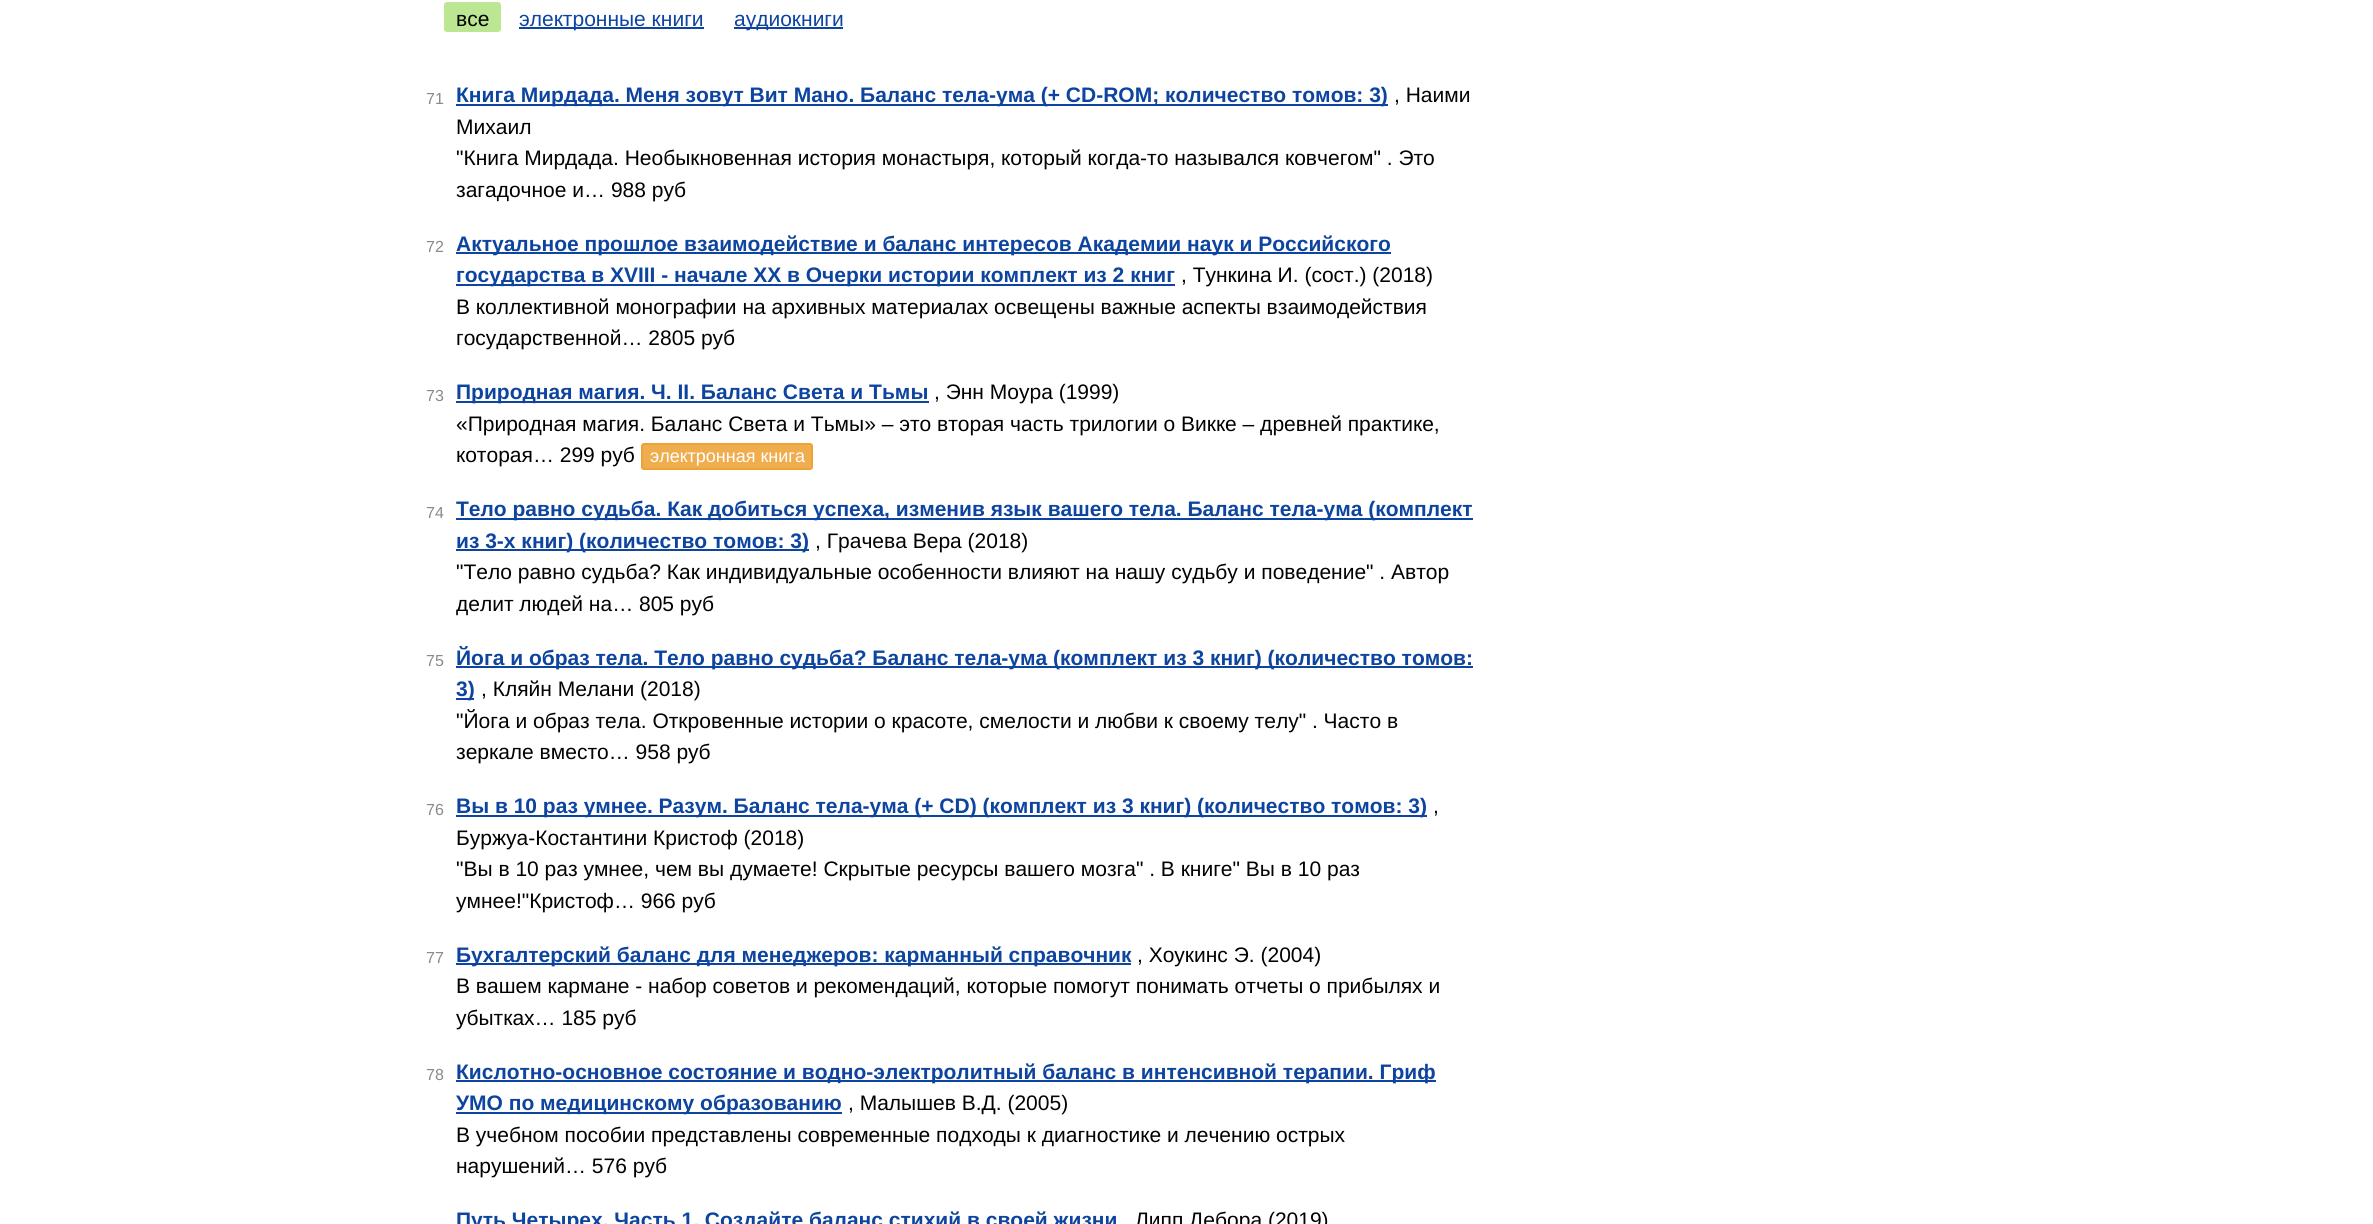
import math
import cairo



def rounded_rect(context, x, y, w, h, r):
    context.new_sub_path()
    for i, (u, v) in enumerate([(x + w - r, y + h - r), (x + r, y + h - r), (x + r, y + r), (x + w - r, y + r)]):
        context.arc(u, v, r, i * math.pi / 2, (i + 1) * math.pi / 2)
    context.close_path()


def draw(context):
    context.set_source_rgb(1, 1, 1)
    context.paint()
    context.set_source_rgb(189 / 255, 230 / 255, 147 / 255)
    rounded_rect(context, 444, 2, 57, 30, 3)
    context.fill()
    context.set_source_rgb(13 / 255, 68 / 255, 160 / 255)
    context.rectangle(519, 27, 185, 2)
    context.fill()
    context.rectangle(734, 27, 109, 2)
    context.fill()
    context.rectangle(456, 104, 932, 2)
    context.fill()
    context.rectangle(456, 252, 935, 2)
    context.fill()
    context.rectangle(456, 284, 719, 2)
    context.fill()
    context.rectangle(456, 401, 473, 2)
    context.fill()
    context.set_source_rgb(240 / 255, 173 / 255, 78 / 255)
    rounded_rect(context, 642, 444, 170, 25, 2)
    context.fill_preserve()
    context.set_source_rgb(238 / 255, 162 / 255, 54 / 255)
    context.stroke()
    context.set_source_rgb(13 / 255, 68 / 255, 160 / 255)
    context.rectangle(456, 518, 1017, 2)
    context.fill()
    context.rectangle(456, 549, 353, 2)
    context.fill()
    context.rectangle(456, 666, 1017, 2)
    context.fill()
    context.rectangle(456, 698, 18, 2)
    context.fill()
    context.rectangle(456, 815, 971, 2)
    context.fill()
    context.rectangle(456, 963, 675, 2)
    context.fill()
    context.rectangle(456, 1080, 980, 2)
    context.fill()
    context.rectangle(456, 1112, 386, 2)
    context.fill()
    context.select_font_face("Liberation Sans")
    context.set_font_size(21)
    context.set_source_rgb(0, 0, 0)
    context.move_to(456, 26)
    context.show_text("все")
    context.set_source_rgb(13 / 255, 68 / 255, 160 / 255)
    context.move_to(519, 26)
    context.show_text("электронные книги")
    context.move_to(734, 26)
    context.show_text("аудиокниги")
    context.set_font_size(16)
    context.set_source_rgb(137 / 255, 137 / 255, 137 / 255)
    context.move_to(426, 104)
    context.show_text("71")
    context.select_font_face("Liberation Sans", cairo.FontSlant.NORMAL, cairo.FontWeight.BOLD)
    context.set_font_size(21)
    context.set_source_rgb(13 / 255, 68 / 255, 160 / 255)
    context.move_to(456, 102)
    context.show_text("Книга Мирдада. Меня зовут Вит Мано. Баланс тела-ума (+ CD-ROM; количество томов: 3)")
    context.select_font_face("Liberation Sans")
    context.set_source_rgb(0, 0, 0)
    context.move_to(1394, 102)
    context.show_text(", Наими")
    context.move_to(456, 134)
    context.show_text("Михаил")
    context.move_to(456, 165)
    context.show_text("\"Книга Мирдада. Необыкновенная история монастыря, который когда-то назывался ковчегом\" . Это")
    context.move_to(456, 197)
    context.show_text("загадочное и… 988 руб")
    context.set_font_size(16)
    context.set_source_rgb(137 / 255, 137 / 255, 137 / 255)
    context.move_to(426, 252)
    context.show_text("72")
    context.select_font_face("Liberation Sans", cairo.FontSlant.NORMAL, cairo.FontWeight.BOLD)
    context.set_font_size(21)
    context.set_source_rgb(13 / 255, 68 / 255, 160 / 255)
    context.move_to(456, 251)
    context.show_text("Актуальное прошлое взаимодействие и баланс интересов Академии наук и Российского")
    context.move_to(456, 282)
    context.show_text("государства в XVIII - начале XX в Очерки истории комплект из 2 книг")
    context.select_font_face("Liberation Sans")
    context.set_source_rgb(0, 0, 0)
    context.move_to(1181, 282)
    context.show_text(", Тункина И. (сост.) (2018)")
    context.move_to(456, 314)
    context.show_text("В коллективной монографии на архивных материалах освещены важные аспекты взаимодействия")
    context.move_to(456, 345)
    context.show_text("государственной… 2805 руб")
    context.set_font_size(16)
    context.set_source_rgb(137 / 255, 137 / 255, 137 / 255)
    context.move_to(426, 401)
    context.show_text("73")
    context.select_font_face("Liberation Sans", cairo.FontSlant.NORMAL, cairo.FontWeight.BOLD)
    context.set_font_size(21)
    context.set_source_rgb(13 / 255, 68 / 255, 160 / 255)
    context.move_to(456, 399)
    context.show_text("Природная магия. Ч. II. Баланс Света и Тьмы")
    context.select_font_face("Liberation Sans")
    context.set_source_rgb(0, 0, 0)
    context.move_to(934, 399)
    context.show_text(", Энн Моура (1999)")
    context.move_to(456, 431)
    context.show_text("«Природная магия. Баланс Света и Тьмы» – это вторая часть трилогии о Викке – древней практике,")
    context.move_to(456, 462)
    context.show_text("которая… 299 руб")
    context.set_font_size(18)
    context.set_source_rgb(1, 1, 1)
    context.move_to(650, 462)
    context.show_text("электронная книга")
    context.set_font_size(16)
    context.set_source_rgb(137 / 255, 137 / 255, 137 / 255)
    context.move_to(426, 518)
    context.show_text("74")
    context.select_font_face("Liberation Sans", cairo.FontSlant.NORMAL, cairo.FontWeight.BOLD)
    context.set_font_size(21)
    context.set_source_rgb(13 / 255, 68 / 255, 160 / 255)
    context.move_to(456, 516)
    context.show_text("Тело равно судьба. Как добиться успеха, изменив язык вашего тела. Баланс тела-ума (комплект")
    context.move_to(456, 548)
    context.show_text("из 3-х книг) (количество томов: 3)")
    context.select_font_face("Liberation Sans")
    context.set_source_rgb(0, 0, 0)
    context.move_to(815, 548)
    context.show_text(", Грачева Вера (2018)")
    context.move_to(456, 579)
    context.show_text("\"Тело равно судьба? Как индивидуальные особенности влияют на нашу судьбу и поведение\" . Автор")
    context.move_to(456, 611)
    context.show_text("делит людей на… 805 руб")
    context.set_font_size(16)
    context.set_source_rgb(137 / 255, 137 / 255, 137 / 255)
    context.move_to(426, 666)
    context.show_text("75")
    context.select_font_face("Liberation Sans", cairo.FontSlant.NORMAL, cairo.FontWeight.BOLD)
    context.set_font_size(21)
    context.set_source_rgb(13 / 255, 68 / 255, 160 / 255)
    context.move_to(456, 665)
    context.show_text("Йога и образ тела. Тело равно судьба? Баланс тела-ума (комплект из 3 книг) (количество томов:")
    context.move_to(456, 696)
    context.show_text("3)")
    context.select_font_face("Liberation Sans")
    context.set_source_rgb(0, 0, 0)
    context.move_to(481, 696)
    context.show_text(", Кляйн Мелани (2018)")
    context.move_to(456, 728)
    context.show_text("\"Йога и образ тела. Откровенные истории о красоте, смелости и любви к своему телу\" . Часто в")
    context.move_to(456, 759)
    context.show_text("зеркале вместо… 958 руб")
    context.set_font_size(16)
    context.set_source_rgb(137 / 255, 137 / 255, 137 / 255)
    context.move_to(426, 815)
    context.show_text("76")
    context.select_font_face("Liberation Sans", cairo.FontSlant.NORMAL, cairo.FontWeight.BOLD)
    context.set_font_size(21)
    context.set_source_rgb(13 / 255, 68 / 255, 160 / 255)
    context.move_to(456, 813)
    context.show_text("Вы в 10 раз умнее. Разум. Баланс тела-ума (+ CD) (комплект из 3 книг) (количество томов: 3)")
    context.select_font_face("Liberation Sans")
    context.set_source_rgb(0, 0, 0)
    context.move_to(1433, 813)
    context.show_text(",")
    context.move_to(456, 845)
    context.show_text("Буржуа-Костантини Кристоф (2018)")
    context.move_to(456, 876)
    context.show_text("\"Вы в 10 раз умнее, чем вы думаете! Скрытые ресурсы вашего мозга\" . В книге\" Вы в 10 раз")
    context.move_to(456, 908)
    context.show_text("умнее!\"Кристоф… 966 руб")
    context.set_font_size(16)
    context.set_source_rgb(137 / 255, 137 / 255, 137 / 255)
    context.move_to(426, 963)
    context.show_text("77")
    context.select_font_face("Liberation Sans", cairo.FontSlant.NORMAL, cairo.FontWeight.BOLD)
    context.set_font_size(21)
    context.set_source_rgb(13 / 255, 68 / 255, 160 / 255)
    context.move_to(456, 962)
    context.show_text("Бухгалтерский баланс для менеджеров: карманный справочник")
    context.select_font_face("Liberation Sans")
    context.set_source_rgb(0, 0, 0)
    context.move_to(1137, 962)
    context.show_text(", Хоукинс Э. (2004)")
    context.move_to(456, 993)
    context.show_text("В вашем кармане - набор советов и рекомендаций, которые помогут понимать отчеты о прибылях и")
    context.move_to(456, 1025)
    context.show_text("убытках… 185 руб")
    context.set_font_size(16)
    context.set_source_rgb(137 / 255, 137 / 255, 137 / 255)
    context.move_to(426, 1080)
    context.show_text("78")
    context.select_font_face("Liberation Sans", cairo.FontSlant.NORMAL, cairo.FontWeight.BOLD)
    context.set_font_size(21)
    context.set_source_rgb(13 / 255, 68 / 255, 160 / 255)
    context.move_to(456, 1079)
    context.show_text("Кислотно-основное состояние и водно-электролитный баланс в интенсивной терапии. Гриф")
    context.move_to(456, 1110)
    context.show_text("УМО по медицинскому образованию")
    context.select_font_face("Liberation Sans")
    context.set_source_rgb(0, 0, 0)
    context.move_to(848, 1110)
    context.show_text(", Малышев В.Д. (2005)")
    context.move_to(456, 1142)
    context.show_text("В учебном пособии представлены современные подходы к диагностике и лечению острых")
    context.move_to(456, 1173)
    context.show_text("нарушений… 576 руб")
    context.select_font_face("Liberation Sans", cairo.FontSlant.NORMAL, cairo.FontWeight.BOLD)
    context.set_source_rgb(13 / 255, 68 / 255, 160 / 255)
    context.move_to(456, 1227)
    context.show_text("Путь Четырех. Часть 1. Создайте баланс стихий в своей жизни")
    context.select_font_face("Liberation Sans")
    context.set_source_rgb(0, 0, 0)
    context.move_to(1135, 1227)
    context.show_text("Липп Дебора (2019)")


surface = cairo.ImageSurface(cairo.Format.RGB24, 2373, 1224)
context = cairo.Context(surface)
options = cairo.FontOptions()
options.set_hint_metrics(cairo.HintMetrics.OFF)
options.set_hint_style(cairo.HintStyle.NONE)
context.set_font_options(options)
context.set_miter_limit(4)
draw(context)
surface.write_to_png("out.png")
